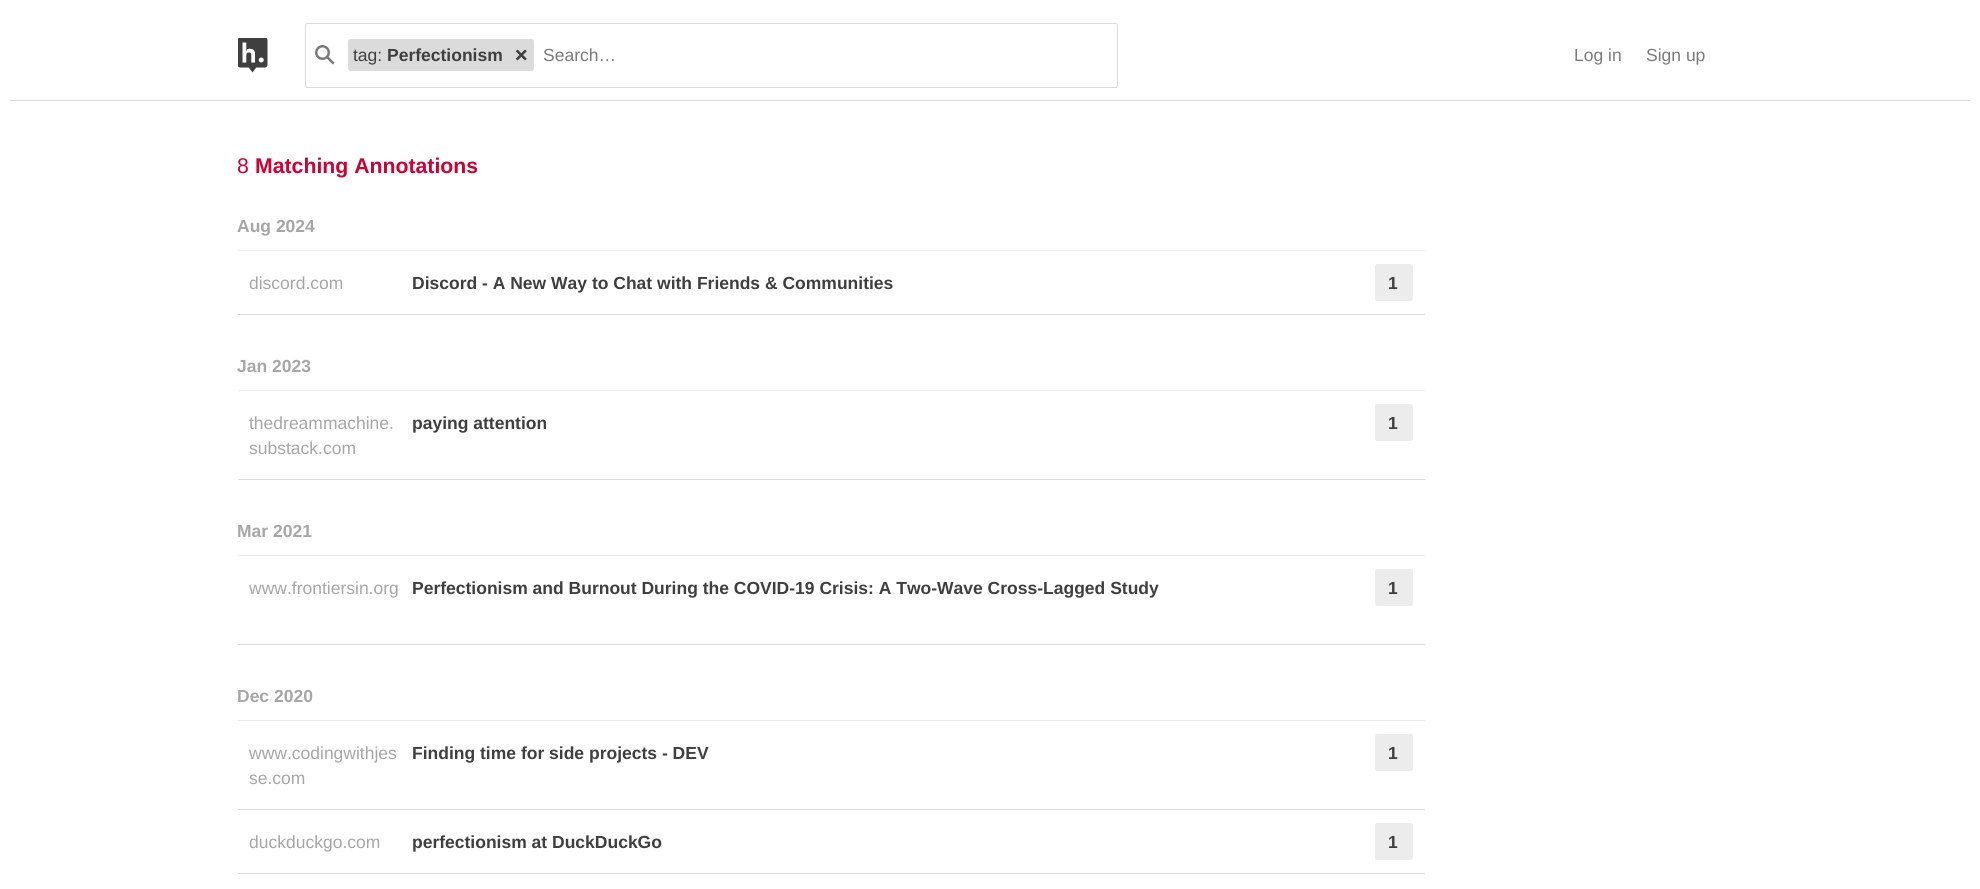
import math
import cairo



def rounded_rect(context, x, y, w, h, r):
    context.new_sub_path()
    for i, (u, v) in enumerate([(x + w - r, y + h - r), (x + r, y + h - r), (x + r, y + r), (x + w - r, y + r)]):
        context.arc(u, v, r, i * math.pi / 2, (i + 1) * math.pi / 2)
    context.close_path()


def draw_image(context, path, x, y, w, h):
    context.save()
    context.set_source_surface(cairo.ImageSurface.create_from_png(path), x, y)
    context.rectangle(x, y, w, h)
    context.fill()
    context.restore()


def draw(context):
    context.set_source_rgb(1, 1, 1)
    context.paint()
    context.set_source_rgb(219 / 255, 219 / 255, 219 / 255)
    context.rectangle(10, 100, 1960, 1)
    context.fill()
    draw_image(context, "images/1.png", 238, 38, 30, 35)
    rounded_rect(context, 305.5, 23.5, 812, 64, 2)
    context.set_line_width(1)
    context.stroke()
    draw_image(context, "images/2.png", 315, 45, 20, 20)
    rounded_rect(context, 348, 39, 186, 32, 2.5)
    context.fill()
    draw_image(context, "images/3.png", 515, 49, 12, 12)
    context.set_source_rgb(236 / 255, 236 / 255, 236 / 255)
    context.rectangle(238, 250, 1187, 1)
    context.fill()
    context.set_source_rgb(219 / 255, 219 / 255, 219 / 255)
    context.rectangle(238, 314, 1187, 1)
    context.fill()
    context.set_source_rgb(236 / 255, 236 / 255, 236 / 255)
    rounded_rect(context, 1375, 264, 38, 37, 2.5)
    context.fill()
    context.rectangle(238, 390, 1187, 1)
    context.fill()
    context.set_source_rgb(219 / 255, 219 / 255, 219 / 255)
    context.rectangle(238, 479, 1187, 1)
    context.fill()
    context.set_source_rgb(236 / 255, 236 / 255, 236 / 255)
    rounded_rect(context, 1375, 404, 38, 37, 2.5)
    context.fill()
    context.rectangle(238, 555, 1187, 1)
    context.fill()
    context.set_source_rgb(219 / 255, 219 / 255, 219 / 255)
    context.rectangle(238, 644, 1187, 1)
    context.fill()
    context.set_source_rgb(236 / 255, 236 / 255, 236 / 255)
    rounded_rect(context, 1375, 569, 38, 37, 2.5)
    context.fill()
    context.rectangle(238, 720, 1187, 1)
    context.fill()
    context.set_source_rgb(219 / 255, 219 / 255, 219 / 255)
    context.rectangle(238, 809, 1187, 1)
    context.fill()
    context.set_source_rgb(236 / 255, 236 / 255, 236 / 255)
    rounded_rect(context, 1375, 734, 38, 37, 2.5)
    context.fill()
    context.set_source_rgb(219 / 255, 219 / 255, 219 / 255)
    context.rectangle(238, 873, 1187, 1)
    context.fill()
    context.set_source_rgb(236 / 255, 236 / 255, 236 / 255)
    rounded_rect(context, 1375, 823, 38, 37, 2.5)
    context.fill()
    context.select_font_face("Liberation Sans")
    context.set_font_size(17.5)
    context.set_source_rgb(63 / 255, 63 / 255, 63 / 255)
    context.move_to(353, 61)
    context.show_text("tag:")
    context.select_font_face("Liberation Sans", cairo.FontSlant.NORMAL, cairo.FontWeight.BOLD)
    context.move_to(387, 61)
    context.show_text("Perfectionism")
    context.select_font_face("Liberation Sans")
    context.set_source_rgb(122 / 255, 122 / 255, 122 / 255)
    context.move_to(543, 61)
    context.show_text("Search…")
    context.move_to(1574, 61)
    context.show_text("Log in")
    context.move_to(1646, 61)
    context.show_text("Sign up")
    context.set_font_size(21.25)
    context.set_source_rgb(208 / 255, 0, 50 / 255)
    context.move_to(237, 173)
    context.show_text("8")
    context.select_font_face("Liberation Sans", cairo.FontSlant.NORMAL, cairo.FontWeight.BOLD)
    context.move_to(255, 173)
    context.show_text("Matching Annotations")
    context.set_font_size(17.5)
    context.set_source_rgb(166 / 255, 166 / 255, 166 / 255)
    context.move_to(237, 232)
    context.show_text("Aug 2024")
    context.select_font_face("Liberation Sans")
    context.move_to(249, 289)
    context.show_text("discord.com")
    context.select_font_face("Liberation Sans", cairo.FontSlant.NORMAL, cairo.FontWeight.BOLD)
    context.set_source_rgb(63 / 255, 63 / 255, 63 / 255)
    context.move_to(412, 289)
    context.show_text("Discord - A New Way to Chat with Friends & Communities")
    context.move_to(1388, 289)
    context.show_text("1")
    context.set_source_rgb(166 / 255, 166 / 255, 166 / 255)
    context.move_to(237, 372)
    context.show_text("Jan 2023")
    context.select_font_face("Liberation Sans")
    context.move_to(249, 429)
    context.show_text("thedreammachine.")
    context.move_to(249, 454)
    context.show_text("substack.com")
    context.select_font_face("Liberation Sans", cairo.FontSlant.NORMAL, cairo.FontWeight.BOLD)
    context.set_source_rgb(63 / 255, 63 / 255, 63 / 255)
    context.move_to(412, 429)
    context.show_text("paying attention")
    context.move_to(1388, 429)
    context.show_text("1")
    context.set_source_rgb(166 / 255, 166 / 255, 166 / 255)
    context.move_to(237, 537)
    context.show_text("Mar 2021")
    context.select_font_face("Liberation Sans")
    context.move_to(249, 594)
    context.show_text("www.frontiersin.org")
    context.select_font_face("Liberation Sans", cairo.FontSlant.NORMAL, cairo.FontWeight.BOLD)
    context.set_source_rgb(63 / 255, 63 / 255, 63 / 255)
    context.move_to(412, 594)
    context.show_text("Perfectionism and Burnout During the COVID-19 Crisis: A Two-Wave Cross-Lagged Study")
    context.move_to(1388, 594)
    context.show_text("1")
    context.set_source_rgb(166 / 255, 166 / 255, 166 / 255)
    context.move_to(237, 702)
    context.show_text("Dec 2020")
    context.select_font_face("Liberation Sans")
    context.move_to(249, 759)
    context.show_text("www.codingwithjes")
    context.move_to(249, 784)
    context.show_text("se.com")
    context.select_font_face("Liberation Sans", cairo.FontSlant.NORMAL, cairo.FontWeight.BOLD)
    context.set_source_rgb(63 / 255, 63 / 255, 63 / 255)
    context.move_to(412, 759)
    context.show_text("Finding time for side projects - DEV")
    context.move_to(1388, 759)
    context.show_text("1")
    context.select_font_face("Liberation Sans")
    context.set_source_rgb(166 / 255, 166 / 255, 166 / 255)
    context.move_to(249, 848)
    context.show_text("duckduckgo.com")
    context.select_font_face("Liberation Sans", cairo.FontSlant.NORMAL, cairo.FontWeight.BOLD)
    context.set_source_rgb(63 / 255, 63 / 255, 63 / 255)
    context.move_to(412, 848)
    context.show_text("perfectionism at DuckDuckGo")
    context.move_to(1388, 848)
    context.show_text("1")


surface = cairo.ImageSurface(cairo.Format.RGB24, 1980, 889)
context = cairo.Context(surface)
options = cairo.FontOptions()
options.set_hint_metrics(cairo.HintMetrics.OFF)
options.set_hint_style(cairo.HintStyle.NONE)
context.set_font_options(options)
context.set_miter_limit(4)
draw(context)
surface.write_to_png("out.png")
